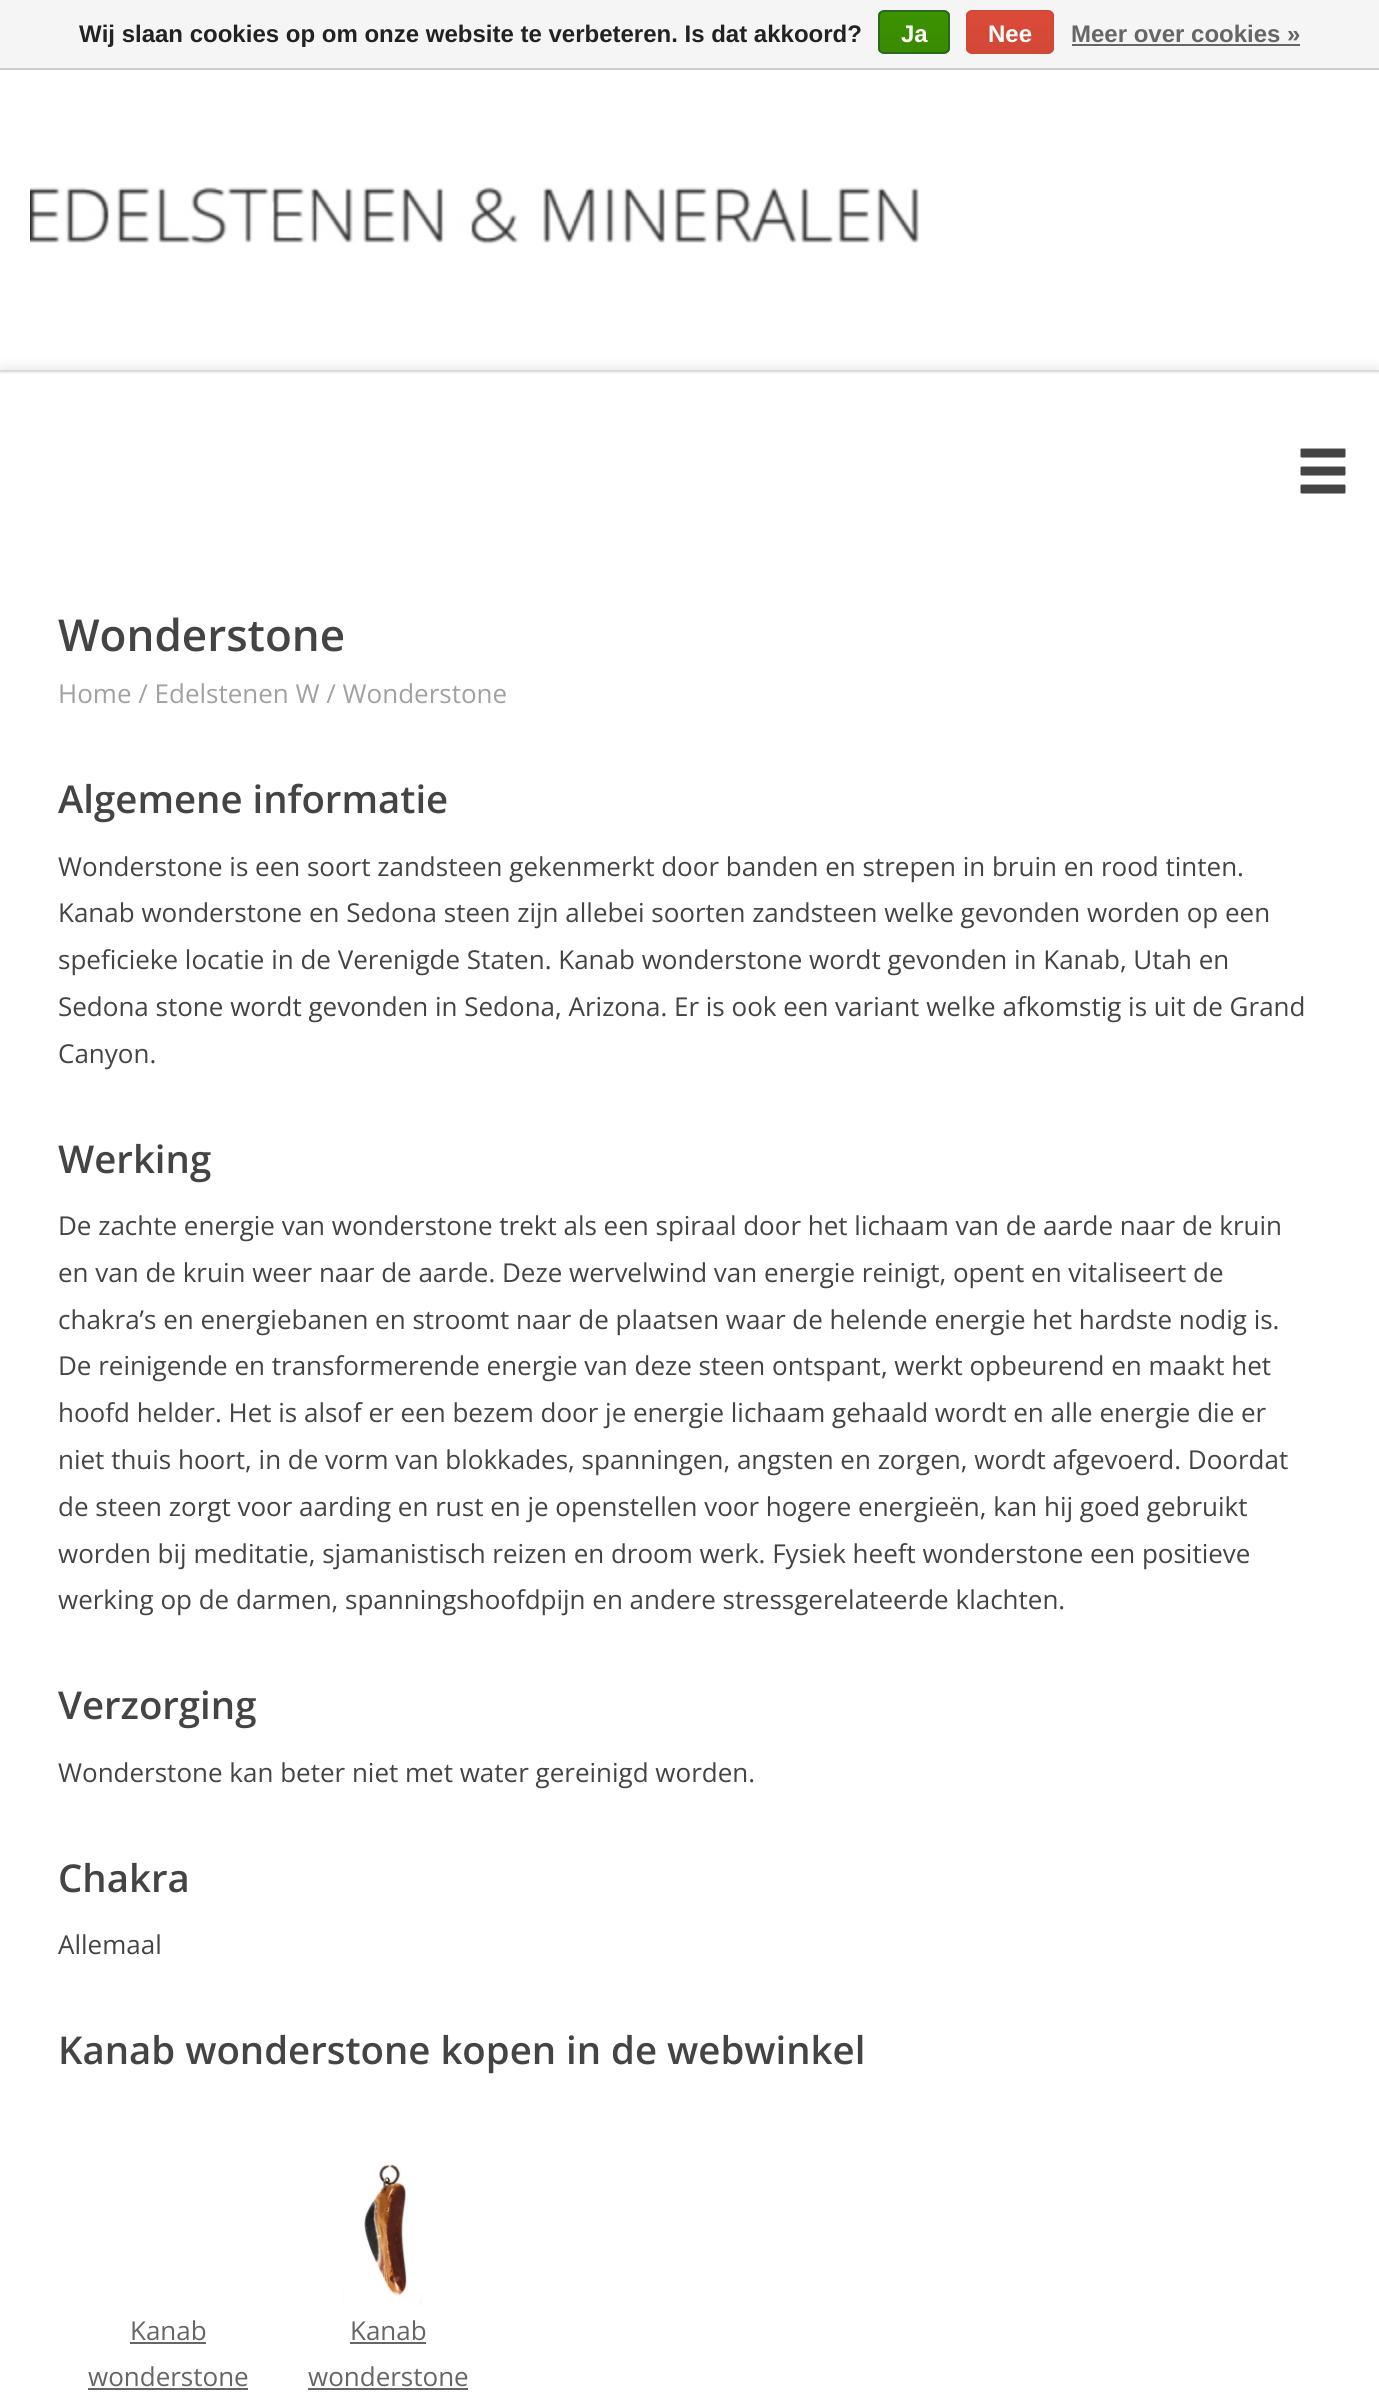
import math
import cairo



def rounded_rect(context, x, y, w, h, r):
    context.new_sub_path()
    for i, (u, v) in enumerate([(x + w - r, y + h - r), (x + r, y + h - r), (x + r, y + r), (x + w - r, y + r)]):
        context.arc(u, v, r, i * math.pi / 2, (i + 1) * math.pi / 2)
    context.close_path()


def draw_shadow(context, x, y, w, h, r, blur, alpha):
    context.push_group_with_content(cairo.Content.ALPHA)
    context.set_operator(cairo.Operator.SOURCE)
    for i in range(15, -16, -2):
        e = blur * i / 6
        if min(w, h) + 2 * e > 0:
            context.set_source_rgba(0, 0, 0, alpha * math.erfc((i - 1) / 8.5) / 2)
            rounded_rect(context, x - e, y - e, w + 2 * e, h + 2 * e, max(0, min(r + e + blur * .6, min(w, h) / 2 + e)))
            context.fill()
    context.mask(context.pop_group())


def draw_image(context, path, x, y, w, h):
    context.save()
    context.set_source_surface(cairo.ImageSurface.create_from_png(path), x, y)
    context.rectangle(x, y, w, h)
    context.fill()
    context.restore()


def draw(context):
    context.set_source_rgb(1, 1, 1)
    context.paint()
    context.set_source_rgb(245 / 255, 245 / 255, 245 / 255)
    context.rectangle(0, 0, 1379, 68)
    context.fill()
    context.set_source_rgb(204 / 255, 204 / 255, 204 / 255)
    context.rectangle(0, 68, 1379, 2)
    context.fill()
    context.save()
    rounded_rect(context, 878, 10, 72, 44, 6)
    context.clip()
    gradient = cairo.LinearGradient(914, 12, 914, 52)
    gradient.add_color_stop_rgba(0, 60 / 255, 147 / 255, 0, 1)
    gradient.add_color_stop_rgba(1, 57 / 255, 138 / 255, 0, 1)
    context.set_source(gradient)
    context.rectangle(878, 12, 72, 40)
    context.fill()
    context.restore()
    rounded_rect(context, 879, 11, 70, 42, 5)
    context.set_source_rgb(41 / 255, 105 / 255, 29 / 255)
    context.stroke()
    context.save()
    rounded_rect(context, 966, 10, 88, 44, 6)
    context.clip()
    gradient = cairo.LinearGradient(1010, 12, 1010, 52)
    gradient.add_color_stop_rgba(0, 220 / 255, 74 / 255, 56 / 255, 1)
    gradient.add_color_stop_rgba(1, 209 / 255, 72 / 255, 54 / 255, 1)
    context.set_source(gradient)
    context.rectangle(966, 12, 88, 40)
    context.fill()
    context.restore()
    rounded_rect(context, 967, 11, 86, 42, 5)
    context.set_source_rgb(209 / 255, 72 / 255, 54 / 255)
    context.stroke()
    context.set_source_rgb(102 / 255, 102 / 255, 102 / 255)
    context.rectangle(1072, 44, 228, 2)
    context.fill()
    draw_image(context, "images/1.png", 30, 187, 889, 58)
    context.set_source_rgb(0, 0, 0)
    draw_shadow(context, 0, 370, 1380, 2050, 4, 7, 0.13)
    context.set_source_rgb(1, 1, 1)
    context.rectangle(0, 374, 1379, 2021)
    context.fill()
    context.set_source_rgb(245 / 255, 245 / 255, 245 / 255)
    context.rectangle(0, 372, 1379, 2)
    context.fill()
    context.set_source_rgb(218 / 255, 218 / 255, 218 / 255)
    context.rectangle(0, 370, 1379, 2)
    context.fill()
    draw_image(context, "images/2.png", 1300, 448, 46, 46)
    draw_image(context, "images/3.png", 342, 2164, 81, 141)
    context.set_source_rgb(102 / 255, 102 / 255, 102 / 255)
    context.rectangle(130, 2342, 76, 2)
    context.fill()
    context.rectangle(88, 2388, 160, 2)
    context.fill()
    context.rectangle(350, 2342, 76, 2)
    context.fill()
    context.rectangle(308, 2388, 160, 2)
    context.fill()
    context.select_font_face("Liberation Sans", cairo.FontSlant.NORMAL, cairo.FontWeight.BOLD)
    context.set_font_size(24)
    context.set_source_rgb(34 / 255, 34 / 255, 34 / 255)
    context.move_to(79, 42)
    context.show_text("Wij slaan cookies op om onze website te verbeteren. Is dat akkoord?")
    context.set_source_rgb(1, 1, 1)
    context.move_to(901, 42)
    context.show_text("Ja")
    context.move_to(988, 42)
    context.show_text("Nee")
    context.set_source_rgb(102 / 255, 102 / 255, 102 / 255)
    context.move_to(1071, 42)
    context.show_text("Meer over cookies »")
    context.select_font_face("Open Sans SemiBold")
    context.set_font_size(44)
    context.set_source_rgb(68 / 255, 68 / 255, 68 / 255)
    context.move_to(58, 651)
    context.show_text("Wonderstone")
    context.select_font_face("Open Sans")
    context.set_font_size(26)
    context.set_source_rgb(161 / 255, 161 / 255, 161 / 255)
    context.move_to(58, 703)
    context.show_text("Home / Edelstenen W / Wonderstone")
    context.select_font_face("Open Sans SemiBold")
    context.set_font_size(38.35)
    context.set_source_rgb(68 / 255, 68 / 255, 68 / 255)
    context.move_to(58, 813)
    context.show_text("Algemene informatie")
    context.select_font_face("Open Sans")
    context.set_font_size(26)
    context.move_to(58, 876)
    context.show_text("Wonderstone is een soort zandsteen gekenmerkt door banden en strepen in bruin en rood tinten.")
    context.move_to(58, 922)
    context.show_text("Kanab wonderstone en Sedona steen zijn allebei soorten zandsteen welke gevonden worden op een")
    context.move_to(58, 969)
    context.show_text("speficieke locatie in de Verenigde Staten. Kanab wonderstone wordt gevonden in Kanab, Utah en")
    context.move_to(58, 1016)
    context.show_text("Sedona stone wordt gevonden in Sedona, Arizona. Er is ook een variant welke afkomstig is uit de Grand")
    context.move_to(58, 1063)
    context.show_text("Canyon.")
    context.select_font_face("Open Sans SemiBold")
    context.set_font_size(38.35)
    context.move_to(58, 1173)
    context.show_text("Werking")
    context.select_font_face("Open Sans")
    context.set_font_size(26)
    context.move_to(58, 1235)
    context.show_text("De zachte energie van wonderstone trekt als een spiraal door het lichaam van de aarde naar de kruin")
    context.move_to(58, 1282)
    context.show_text("en van de kruin weer naar de aarde. Deze wervelwind van energie reinigt, opent en vitaliseert de")
    context.move_to(58, 1329)
    context.show_text("chakra’s en energiebanen en stroomt naar de plaatsen waar de helende energie het hardste nodig is.")
    context.move_to(58, 1375)
    context.show_text("De reinigende en transformerende energie van deze steen ontspant, werkt opbeurend en maakt het")
    context.move_to(58, 1422)
    context.show_text("hoofd helder. Het is alsof er een bezem door je energie lichaam gehaald wordt en alle energie die er")
    context.move_to(58, 1469)
    context.show_text("niet thuis hoort, in de vorm van blokkades, spanningen, angsten en zorgen, wordt afgevoerd. Doordat")
    context.move_to(58, 1516)
    context.show_text("de steen zorgt voor aarding en rust en je openstellen voor hogere energieën, kan hij goed gebruikt")
    context.move_to(58, 1563)
    context.show_text("worden bij meditatie, sjamanistisch reizen en droom werk. Fysiek heeft wonderstone een positieve")
    context.move_to(58, 1609)
    context.show_text("werking op de darmen, spanningshoofdpijn en andere stressgerelateerde klachten.")
    context.select_font_face("Open Sans SemiBold")
    context.set_font_size(38.35)
    context.move_to(58, 1719)
    context.show_text("Verzorging")
    context.select_font_face("Open Sans")
    context.set_font_size(26)
    context.move_to(58, 1782)
    context.show_text("Wonderstone kan beter niet met water gereinigd worden.")
    context.select_font_face("Open Sans SemiBold")
    context.set_font_size(38.35)
    context.move_to(58, 1892)
    context.show_text("Chakra")
    context.select_font_face("Open Sans")
    context.set_font_size(26)
    context.move_to(58, 1954)
    context.show_text("Allemaal")
    context.select_font_face("Open Sans SemiBold")
    context.set_font_size(38.35)
    context.move_to(58, 2064)
    context.show_text("Kanab wonderstone kopen in de webwinkel")
    context.select_font_face("Open Sans")
    context.set_font_size(26)
    context.set_source_rgb(102 / 255, 102 / 255, 102 / 255)
    context.move_to(130, 2340)
    context.show_text("Kanab")
    context.move_to(88, 2386)
    context.show_text("wonderstone")
    context.move_to(350, 2340)
    context.show_text("Kanab")
    context.move_to(308, 2386)
    context.show_text("wonderstone")


surface = cairo.ImageSurface(cairo.Format.RGB24, 1379, 2395)
context = cairo.Context(surface)
options = cairo.FontOptions()
options.set_hint_metrics(cairo.HintMetrics.OFF)
options.set_hint_style(cairo.HintStyle.NONE)
context.set_font_options(options)
context.set_miter_limit(4)
draw(context)
surface.write_to_png("out.png")
